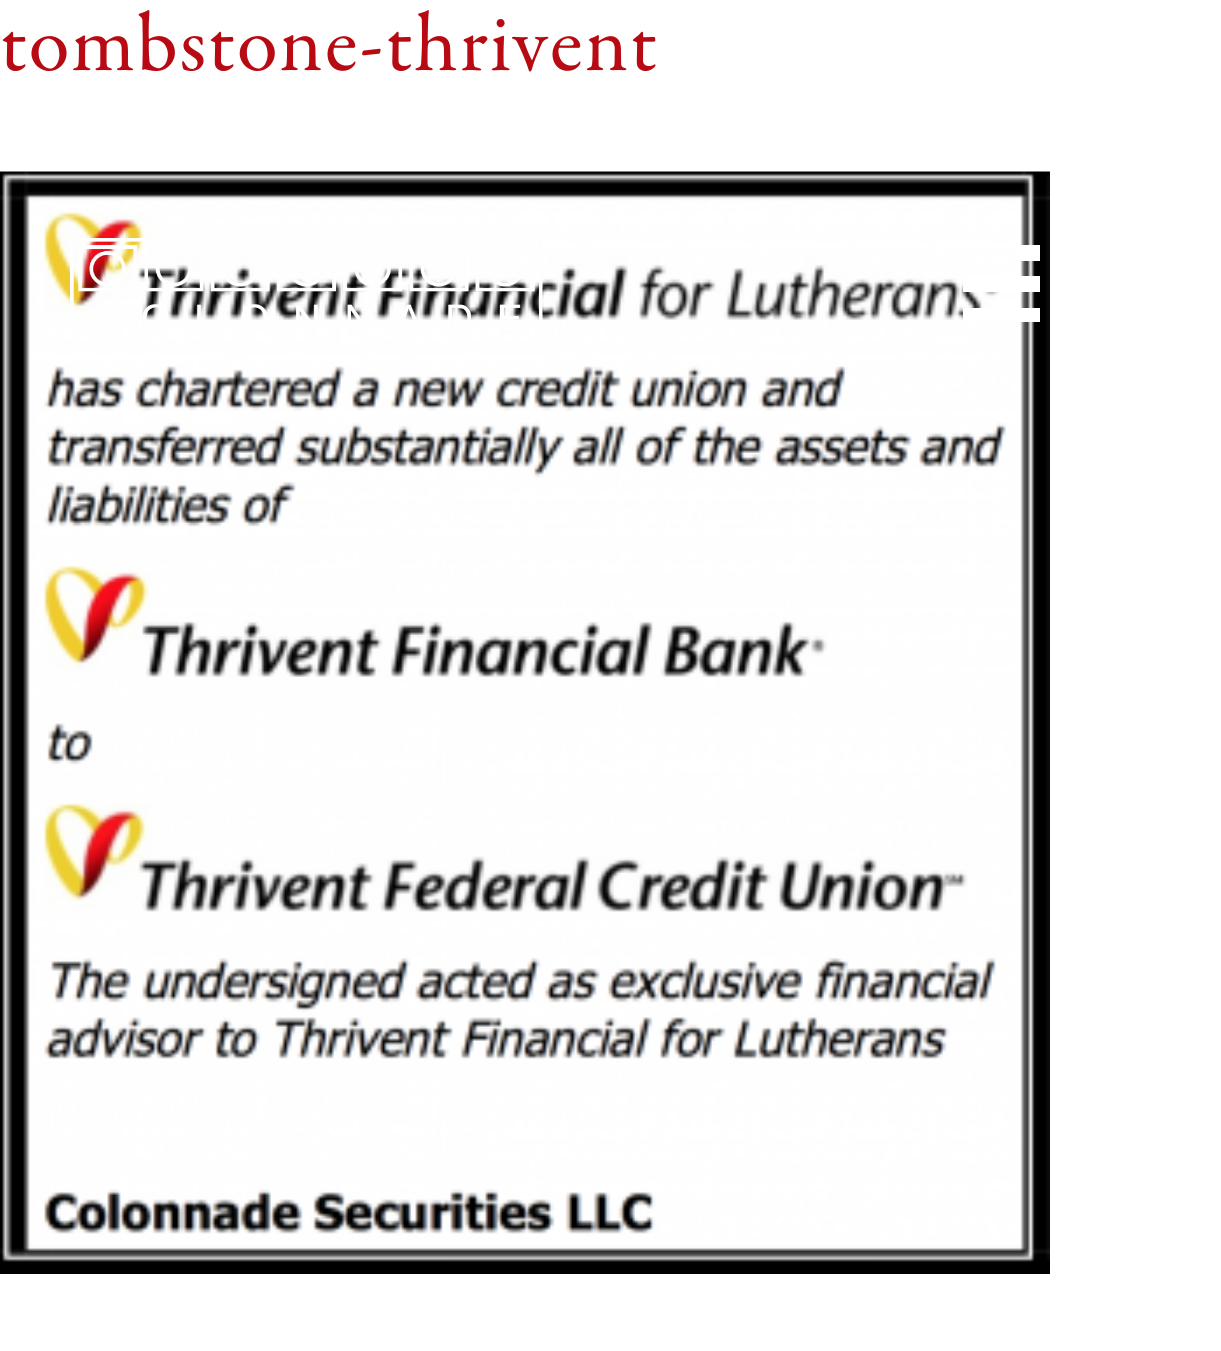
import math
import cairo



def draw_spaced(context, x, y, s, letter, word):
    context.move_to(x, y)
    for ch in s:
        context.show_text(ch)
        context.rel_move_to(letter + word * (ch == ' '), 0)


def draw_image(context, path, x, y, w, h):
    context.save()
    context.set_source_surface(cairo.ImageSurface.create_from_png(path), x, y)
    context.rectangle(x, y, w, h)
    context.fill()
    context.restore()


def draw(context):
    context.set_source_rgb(1, 1, 1)
    context.paint()
    draw_image(context, "images/1.png", 0, 171, 1050, 1103)
    draw_image(context, "images/2.png", 70, 238, 473, 94)
    context.set_source_rgb(1, 1, 1)
    context.rectangle(1020, 245, 20, 16)
    context.fill()
    context.rectangle(963, 276, 77, 16)
    context.fill()
    context.rectangle(963, 308, 77, 14)
    context.fill()
    context.select_font_face("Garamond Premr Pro")
    context.set_font_size(84)
    context.set_source_rgb(183 / 255, 10 / 255, 19 / 255)
    draw_spaced(context, 0, 70, "tombstone-thrivent", 1.75, 0)


surface = cairo.ImageSurface(cairo.Format.RGB24, 1221, 1351)
context = cairo.Context(surface)
options = cairo.FontOptions()
options.set_hint_metrics(cairo.HintMetrics.OFF)
options.set_hint_style(cairo.HintStyle.NONE)
context.set_font_options(options)
context.set_miter_limit(4)
draw(context)
surface.write_to_png("out.png")
